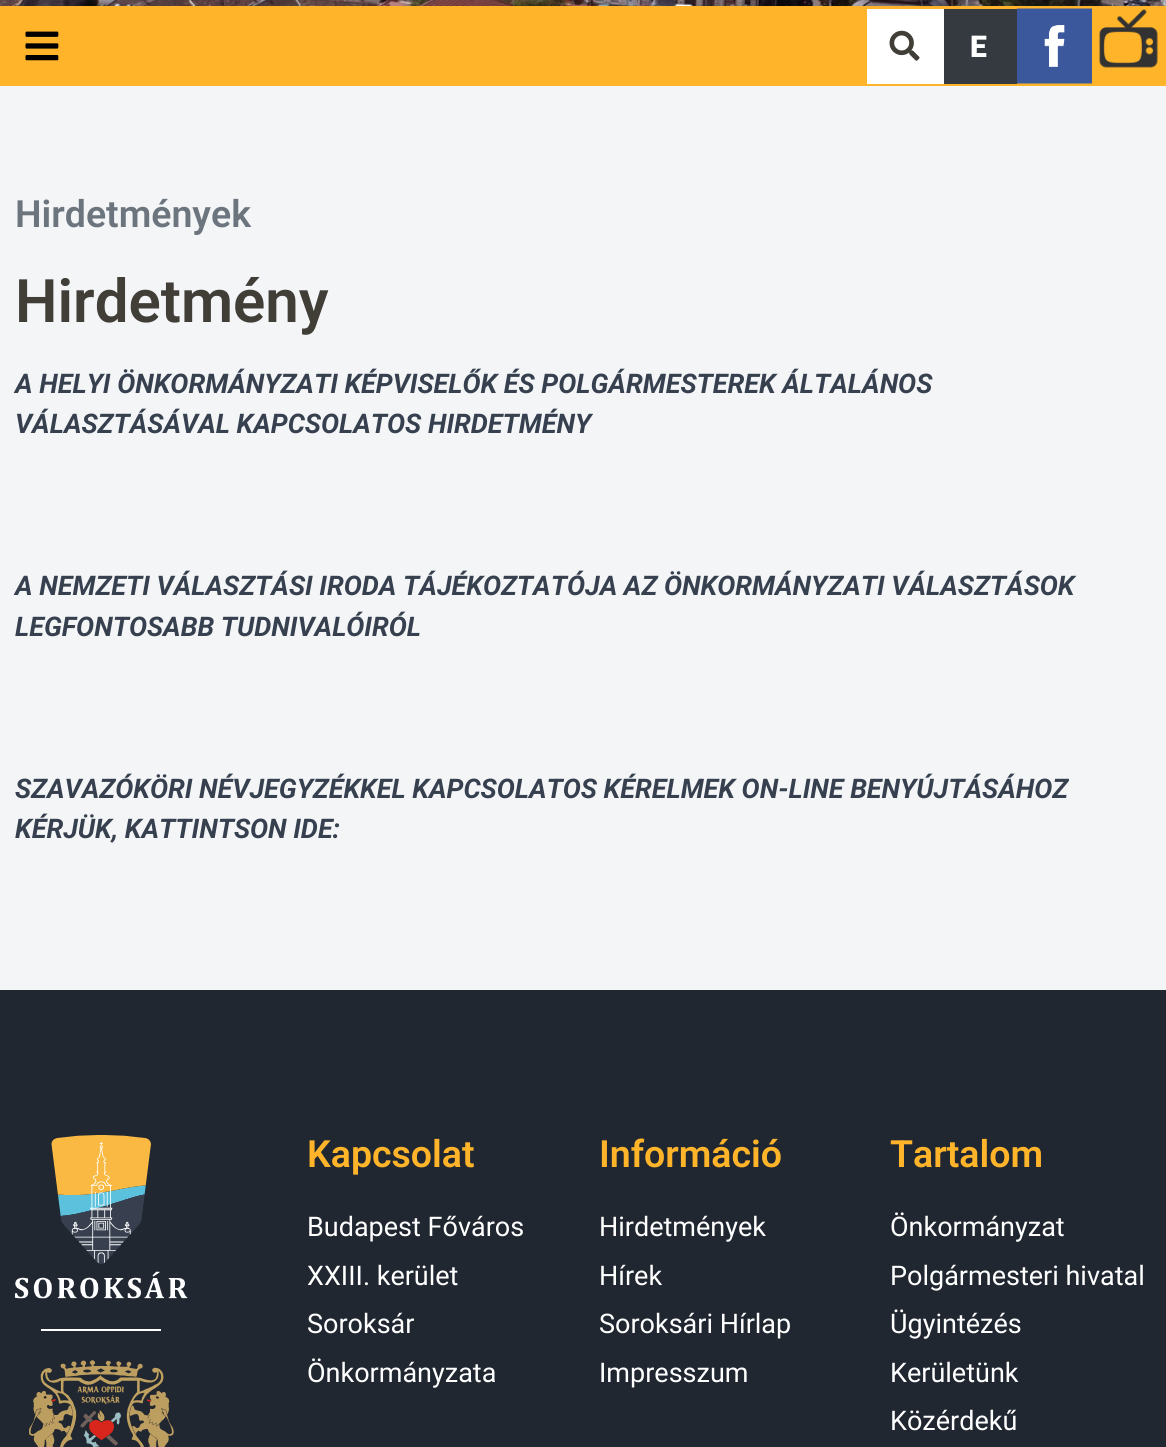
import math
import cairo



def draw_image(context, path, x, y, w, h):
    context.save()
    context.set_source_surface(cairo.ImageSurface.create_from_png(path), x, y)
    context.rectangle(x, y, w, h)
    context.fill()
    context.restore()


def draw(context):
    context.set_source_rgb(243 / 255, 245 / 255, 247 / 255)
    context.paint()
    draw_image(context, "images/1.png", 0, 0, 1166, 6)
    context.set_source_rgb(1, 180 / 255, 42 / 255)
    context.rectangle(0, 6, 1166, 80)
    context.fill()
    draw_image(context, "images/2.png", 25, 31, 34, 30)
    context.set_source_rgb(1, 1, 1)
    context.rectangle(867, 9, 77, 75)
    context.fill()
    draw_image(context, "images/3.png", 889, 30, 31, 31)
    context.set_source_rgb(52 / 255, 58 / 255, 64 / 255)
    context.rectangle(944, 9, 73, 75)
    context.fill()
    draw_image(context, "images/4.png", 1017, 8, 75, 76)
    draw_image(context, "images/5.png", 1099, 9, 59, 59)
    context.set_source_rgb(32 / 255, 39 / 255, 49 / 255)
    context.rectangle(0, 990, 1166, 457)
    context.fill()
    draw_image(context, "images/6.png", 15, 1135, 173, 164)
    context.set_source_rgb(1, 1, 1)
    context.rectangle(41, 1329, 120, 2)
    context.fill()
    draw_image(context, "images/7.png", 29, 1360, 145, 87)
    context.select_font_face("Roboto Black")
    context.set_font_size(30)
    context.move_to(970, 57)
    context.show_text("E")
    context.select_font_face("Roboto SemiBold")
    context.set_font_size(37.5)
    context.set_source_rgb(108 / 255, 117 / 255, 125 / 255)
    context.move_to(15, 227)
    context.show_text("Hirdetmények")
    context.set_font_size(60)
    context.set_source_rgb(65 / 255, 62 / 255, 56 / 255)
    context.move_to(15, 322)
    context.show_text("Hirdetmény")
    context.select_font_face("Roboto", cairo.FontSlant.ITALIC, cairo.FontWeight.BOLD)
    context.set_font_size(27)
    context.set_source_rgb(55 / 255, 64 / 255, 79 / 255)
    context.move_to(15, 393)
    context.show_text("A HELYI ÖNKORMÁNYZATI KÉPVISELŐK ÉS POLGÁRMESTEREK ÁLTALÁNOS")
    context.move_to(15, 433)
    context.show_text("VÁLASZTÁSÁVAL KAPCSOLATOS HIRDETMÉNY")
    context.move_to(15, 595)
    context.show_text("A NEMZETI VÁLASZTÁSI IRODA TÁJÉKOZTATÓJA AZ ÖNKORMÁNYZATI VÁLASZTÁSOK")
    context.move_to(15, 636)
    context.show_text("LEGFONTOSABB TUDNIVALÓIRÓL")
    context.move_to(15, 798)
    context.show_text("SZAVAZÓKÖRI NÉVJEGYZÉKKEL KAPCSOLATOS KÉRELMEK ON-LINE BENYÚJTÁSÁHOZ")
    context.move_to(15, 838)
    context.show_text("KÉRJÜK, KATTINTSON IDE:")
    context.select_font_face("Roboto SemiBold")
    context.set_font_size(37.5)
    context.set_source_rgb(1, 180 / 255, 42 / 255)
    context.move_to(307, 1167)
    context.show_text("Kapcsolat")
    context.select_font_face("Roboto")
    context.set_font_size(27)
    context.set_source_rgb(1, 1, 1)
    context.move_to(307, 1236)
    context.show_text("Budapest Főváros")
    context.move_to(307, 1285)
    context.show_text("XXIII. kerület")
    context.move_to(307, 1333)
    context.show_text("Soroksár")
    context.move_to(307, 1382)
    context.show_text("Önkormányzata")
    context.select_font_face("Roboto SemiBold")
    context.set_font_size(37.5)
    context.set_source_rgb(1, 180 / 255, 42 / 255)
    context.move_to(599, 1167)
    context.show_text("Információ")
    context.select_font_face("Roboto")
    context.set_font_size(27)
    context.set_source_rgb(1, 1, 1)
    context.move_to(599, 1236)
    context.show_text("Hirdetmények")
    context.move_to(599, 1285)
    context.show_text("Hírek")
    context.move_to(599, 1333)
    context.show_text("Soroksári Hírlap")
    context.move_to(599, 1382)
    context.show_text("Impresszum")
    context.select_font_face("Roboto SemiBold")
    context.set_font_size(37.5)
    context.set_source_rgb(1, 180 / 255, 42 / 255)
    context.move_to(890, 1167)
    context.show_text("Tartalom")
    context.select_font_face("Roboto")
    context.set_font_size(27)
    context.set_source_rgb(1, 1, 1)
    context.move_to(890, 1236)
    context.show_text("Önkormányzat")
    context.move_to(890, 1285)
    context.show_text("Polgármesteri hivatal")
    context.move_to(890, 1333)
    context.show_text("Ügyintézés")
    context.move_to(890, 1382)
    context.show_text("Kerületünk")
    context.move_to(890, 1430)
    context.show_text("Közérdekű")


surface = cairo.ImageSurface(cairo.Format.RGB24, 1166, 1447)
context = cairo.Context(surface)
options = cairo.FontOptions()
options.set_hint_metrics(cairo.HintMetrics.OFF)
options.set_hint_style(cairo.HintStyle.NONE)
context.set_font_options(options)
context.set_miter_limit(4)
draw(context)
surface.write_to_png("out.png")
